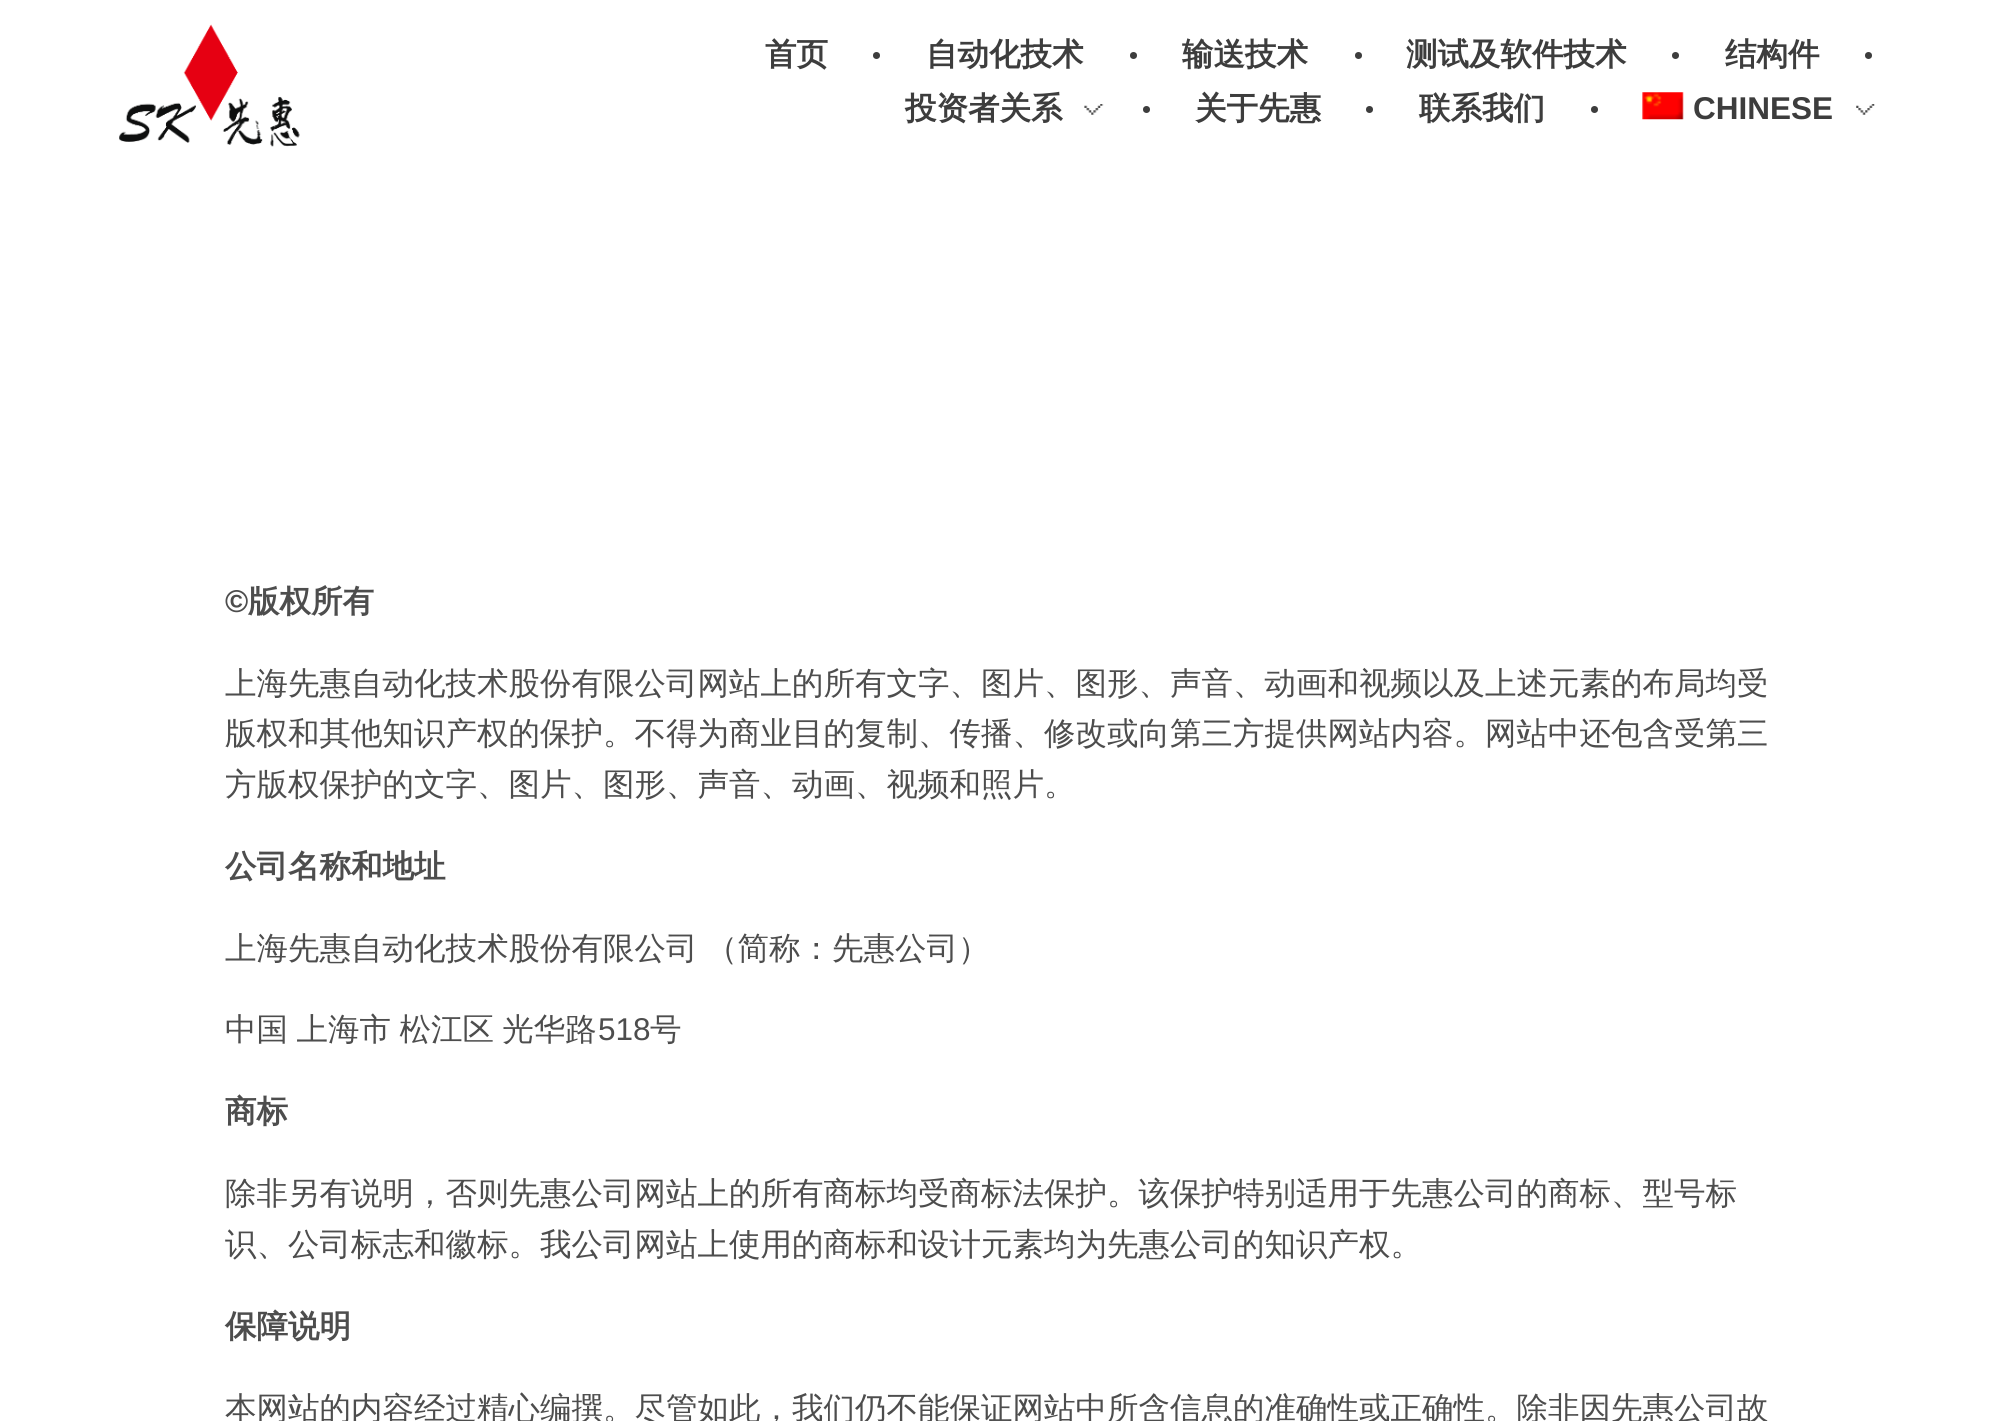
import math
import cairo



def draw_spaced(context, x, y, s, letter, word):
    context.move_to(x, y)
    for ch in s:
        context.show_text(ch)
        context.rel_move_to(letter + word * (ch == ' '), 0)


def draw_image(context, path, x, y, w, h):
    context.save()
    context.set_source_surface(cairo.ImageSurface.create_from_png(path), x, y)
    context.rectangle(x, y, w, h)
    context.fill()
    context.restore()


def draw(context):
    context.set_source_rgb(1, 1, 1)
    context.paint()
    draw_image(context, "images/1.png", 119, 24, 181, 123)
    context.set_source_rgb(61 / 255, 61 / 255, 61 / 255)
    context.arc(876.5, 55.5, 3.5, 0, 2 * math.pi)
    context.fill()
    context.arc(1133.5, 55.5, 3.5, 0, 2 * math.pi)
    context.fill()
    context.arc(1358.5, 55.5, 3.5, 0, 2 * math.pi)
    context.fill()
    context.arc(1675.5, 55.5, 3.5, 0, 2 * math.pi)
    context.fill()
    context.arc(1868.5, 55.5, 3.5, 0, 2 * math.pi)
    context.fill()
    draw_image(context, "images/2.png", 1084, 104, 20, 11)
    context.arc(1146.5, 109.5, 3.5, 0, 2 * math.pi)
    context.fill()
    context.arc(1369.5, 109.5, 3.5, 0, 2 * math.pi)
    context.fill()
    context.arc(1594.5, 109.5, 3.5, 0, 2 * math.pi)
    context.fill()
    draw_image(context, "images/3.png", 1642, 92, 42, 28)
    draw_image(context, "images/4.png", 1856, 104, 19, 11)
    context.select_font_face("WenQuanYi Zen Hei", cairo.FontSlant.NORMAL, cairo.FontWeight.BOLD)
    context.set_font_size(31.5)
    context.move_to(765, 65)
    context.show_text("首页")
    context.move_to(926, 65)
    context.show_text("自动化技术")
    context.move_to(1182, 65)
    context.show_text("输送技术")
    context.move_to(1406, 65)
    context.show_text("测试及软件技术")
    context.move_to(1725, 65)
    context.show_text("结构件")
    context.move_to(905, 119)
    context.show_text("投资者关系")
    context.move_to(1195, 119)
    context.show_text("关于先惠")
    context.move_to(1419, 119)
    context.show_text("联系我们")
    context.select_font_face("Liberation Sans", cairo.FontSlant.NORMAL, cairo.FontWeight.BOLD)
    context.move_to(1693, 119)
    context.show_text("CHINESE")
    context.set_source_rgb(77 / 255, 77 / 255, 77 / 255)
    context.move_to(225, 612)
    context.show_text("©")
    context.select_font_face("WenQuanYi Zen Hei", cairo.FontSlant.NORMAL, cairo.FontWeight.BOLD)
    context.move_to(248, 612)
    context.show_text("版权所有")
    context.select_font_face("WenQuanYi Zen Hei Medium")
    context.move_to(225, 694)
    context.show_text("上海先惠自动化技术股份有限公司网站上的所有文字、图片、图形、声音、动画和视频以及上述元素的布局均受")
    context.move_to(225, 744)
    context.show_text("版权和其他知识产权的保护。不得为商业目的复制、传播、修改或向第三方提供网站内容。网站中还包含受第三")
    context.move_to(225, 795)
    context.show_text("方版权保护的文字、图片、图形、声音、动画、视频和照片。")
    context.select_font_face("WenQuanYi Zen Hei", cairo.FontSlant.NORMAL, cairo.FontWeight.BOLD)
    context.move_to(225, 877)
    context.show_text("公司名称和地址")
    context.select_font_face("WenQuanYi Zen Hei Medium")
    draw_spaced(context, 225, 959, "上海先惠自动化技术股份有限公司 （简称：先惠公司）", 0, -1)
    draw_spaced(context, 225, 1040, "中国 上海市 松江区 光华路", 0, -1)
    context.select_font_face("Liberation Sans")
    context.move_to(598, 1040)
    context.show_text("518")
    context.select_font_face("WenQuanYi Zen Hei Medium")
    context.move_to(650, 1040)
    context.show_text("号")
    context.select_font_face("WenQuanYi Zen Hei", cairo.FontSlant.NORMAL, cairo.FontWeight.BOLD)
    context.move_to(225, 1122)
    context.show_text("商标")
    context.select_font_face("WenQuanYi Zen Hei Medium")
    context.move_to(225, 1204)
    context.show_text("除非另有说明，否则先惠公司网站上的所有商标均受商标法保护。该保护特别适用于先惠公司的商标、型号标")
    context.move_to(225, 1255)
    context.show_text("识、公司标志和徽标。我公司网站上使用的商标和设计元素均为先惠公司的知识产权。")
    context.select_font_face("WenQuanYi Zen Hei", cairo.FontSlant.NORMAL, cairo.FontWeight.BOLD)
    context.move_to(225, 1337)
    context.show_text("保障说明")
    context.select_font_face("WenQuanYi Zen Hei Medium")
    context.move_to(225, 1419)
    context.show_text("本网站的内容经过精心编撰。尽管如此，我们仍不能保证网站中所含信息的准确性或正确性。除非因先惠公司故")


surface = cairo.ImageSurface(cairo.Format.RGB24, 1994, 1421)
context = cairo.Context(surface)
options = cairo.FontOptions()
options.set_hint_metrics(cairo.HintMetrics.OFF)
options.set_hint_style(cairo.HintStyle.NONE)
context.set_font_options(options)
context.set_miter_limit(4)
draw(context)
surface.write_to_png("out.png")
